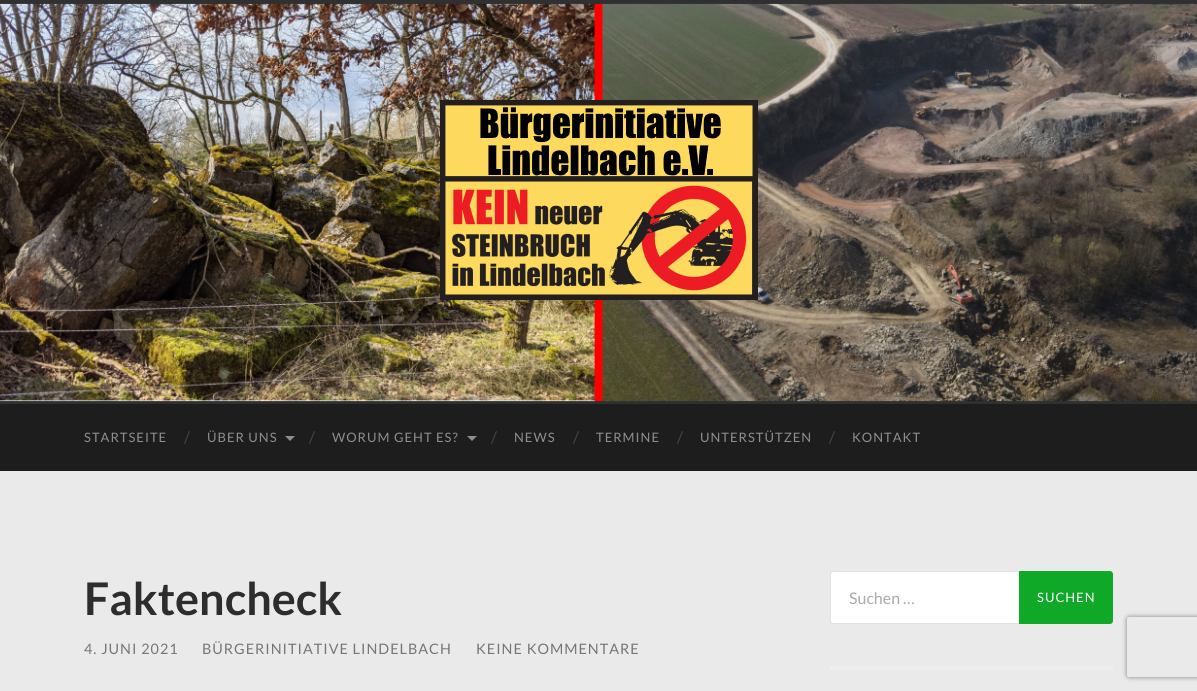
import math
import cairo



def draw_spaced(context, x, y, s, letter, word):
    context.move_to(x, y)
    for ch in s:
        context.show_text(ch)
        context.rel_move_to(letter + word * (ch == ' '), 0)


def rounded_rect(context, x, y, w, h, r):
    context.new_sub_path()
    for i, (u, v) in enumerate([(x + w - r, y + h - r), (x + r, y + h - r), (x + r, y + r), (x + w - r, y + r)]):
        context.arc(u, v, r, i * math.pi / 2, (i + 1) * math.pi / 2)
    context.close_path()


def draw_shadow(context, x, y, w, h, r, blur, alpha):
    context.push_group_with_content(cairo.Content.ALPHA)
    context.set_operator(cairo.Operator.SOURCE)
    for i in range(15, -16, -2):
        e = blur * i / 6
        if min(w, h) + 2 * e > 0:
            context.set_source_rgba(0, 0, 0, alpha * math.erfc((i - 1) / 8.5) / 2)
            rounded_rect(context, x - e, y - e, w + 2 * e, h + 2 * e, max(0, min(r + e + blur * .6, min(w, h) / 2 + e)))
            context.fill()
    context.mask(context.pop_group())


def draw_image(context, path, x, y, w, h):
    context.save()
    context.set_source_surface(cairo.ImageSurface.create_from_png(path), x, y)
    context.rectangle(x, y, w, h)
    context.fill()
    context.restore()


def draw(context):
    context.set_source_rgb(234 / 255, 234 / 255, 234 / 255)
    context.paint()
    draw_image(context, "images/1.png", 0, 0, 1197, 404)
    draw_image(context, "images/2.png", 440, 100, 318, 200)
    context.set_source_rgb(29 / 255, 29 / 255, 29 / 255)
    context.rectangle(0, 404, 1197, 67)
    context.fill()
    context.set_source_rgb(142 / 255, 142 / 255, 142 / 255)
    context.new_path()
    context.move_to(285, 436)
    context.line_to(295, 436)
    context.line_to(290, 441)
    context.close_path()
    context.fill()
    context.new_path()
    context.move_to(467, 436)
    context.line_to(477, 436)
    context.line_to(472, 441)
    context.close_path()
    context.fill()
    context.set_source_rgb(238 / 255, 238 / 255, 238 / 255)
    context.rectangle(830, 666, 283, 4)
    context.fill()
    context.set_source_rgb(1, 1, 1)
    context.new_path()
    context.move_to(833, 572)
    context.line_to(1019, 572)
    context.line_to(1019, 623)
    context.line_to(833, 623)
    context.curve_to(832, 623, 831, 622, 831, 621)
    context.line_to(831, 574)
    context.curve_to(831, 573, 832, 572, 833, 572)
    context.close_path()
    context.fill()
    context.set_source_rgb(225 / 255, 225 / 255, 227 / 255)
    context.set_fill_rule(cairo.FillRule.EVEN_ODD)
    context.new_path()
    context.move_to(833, 571)
    context.line_to(1019, 571)
    context.line_to(1019, 624)
    context.line_to(833, 624)
    context.curve_to(831, 624, 830, 623, 830, 621)
    context.line_to(830, 574)
    context.curve_to(830, 572, 831, 571, 833, 571)
    context.close_path()
    context.move_to(833, 572)
    context.line_to(1019, 572)
    context.line_to(1019, 623)
    context.line_to(833, 623)
    context.curve_to(832, 623, 831, 622, 831, 621)
    context.line_to(831, 574)
    context.curve_to(831, 573, 832, 572, 833, 572)
    context.close_path()
    context.fill()
    context.set_source_rgb(16 / 255, 168 / 255, 39 / 255)
    context.new_path()
    context.move_to(1019, 571)
    context.line_to(1110, 571)
    context.curve_to(1111.5, 571, 1113, 572.5, 1113, 574)
    context.line_to(1113, 621)
    context.curve_to(1113, 622.5, 1111.5, 624, 1110, 624)
    context.line_to(1019, 624)
    context.close_path()
    context.fill()
    context.save()
    context.new_path()
    context.move_to(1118, 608)
    context.line_to(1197, 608)
    context.line_to(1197, 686)
    context.line_to(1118, 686)
    context.close_path()
    context.move_to(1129, 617)
    context.line_to(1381, 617)
    context.curve_to(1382, 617, 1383, 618, 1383, 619)
    context.line_to(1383, 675)
    context.curve_to(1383, 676, 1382, 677, 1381, 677)
    context.line_to(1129, 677)
    context.curve_to(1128, 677, 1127, 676, 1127, 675)
    context.line_to(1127, 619)
    context.curve_to(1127, 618, 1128, 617, 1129, 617)
    context.close_path()
    context.clip()
    context.set_source_rgb(128 / 255, 128 / 255, 128 / 255)
    draw_shadow(context, 1127, 617, 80, 60, 2, 2.5, 1)
    context.restore()
    context.select_font_face("Lato")
    context.set_font_size(13)
    context.set_source_rgb(142 / 255, 142 / 255, 142 / 255)
    draw_spaced(context, 84, 442, "STARTSEITE", 1, 0)
    context.set_font_size(16)
    context.set_source_rgb(68 / 255, 68 / 255, 68 / 255)
    context.move_to(184, 443)
    context.show_text("/")
    context.set_font_size(13)
    context.set_source_rgb(142 / 255, 142 / 255, 142 / 255)
    draw_spaced(context, 207, 442, "ÜBER UNS", 1, 0)
    context.set_font_size(16)
    context.set_source_rgb(68 / 255, 68 / 255, 68 / 255)
    context.move_to(309, 443)
    context.show_text("/")
    context.set_font_size(13)
    context.set_source_rgb(142 / 255, 142 / 255, 142 / 255)
    draw_spaced(context, 332, 442, "WORUM GEHT ES?", 1, 0)
    context.set_font_size(16)
    context.set_source_rgb(68 / 255, 68 / 255, 68 / 255)
    context.move_to(491, 443)
    context.show_text("/")
    context.set_font_size(13)
    context.set_source_rgb(142 / 255, 142 / 255, 142 / 255)
    draw_spaced(context, 514, 442, "NEWS", 1, 0)
    context.set_font_size(16)
    context.set_source_rgb(68 / 255, 68 / 255, 68 / 255)
    context.move_to(573, 443)
    context.show_text("/")
    context.set_font_size(13)
    context.set_source_rgb(142 / 255, 142 / 255, 142 / 255)
    draw_spaced(context, 596, 442, "TERMINE", 1, 0)
    context.set_font_size(16)
    context.set_source_rgb(68 / 255, 68 / 255, 68 / 255)
    context.move_to(677, 443)
    context.show_text("/")
    context.set_font_size(13)
    context.set_source_rgb(142 / 255, 142 / 255, 142 / 255)
    draw_spaced(context, 700, 442, "UNTERSTÜTZEN", 1, 0)
    context.set_font_size(16)
    context.set_source_rgb(68 / 255, 68 / 255, 68 / 255)
    context.move_to(829, 443)
    context.show_text("/")
    context.set_font_size(13)
    context.set_source_rgb(142 / 255, 142 / 255, 142 / 255)
    draw_spaced(context, 852, 442, "KONTAKT", 1, 0)
    context.select_font_face("Lato", cairo.FontSlant.NORMAL, cairo.FontWeight.BOLD)
    context.set_font_size(45)
    context.set_source_rgb(45 / 255, 45 / 255, 45 / 255)
    context.move_to(84, 615)
    context.show_text("Faktencheck")
    context.select_font_face("Lato")
    context.set_font_size(14.4)
    context.set_source_rgb(118 / 255, 118 / 255, 118 / 255)
    draw_spaced(context, 84, 654, "4. JUNI 2021", 1, 0)
    draw_spaced(context, 202, 654, "BÜRGERINITIATIVE LINDELBACH", 1, 0)
    draw_spaced(context, 476, 654, "KEINE KOMMENTARE", 1, 0)
    context.set_font_size(16)
    context.set_source_rgb(169 / 255, 169 / 255, 169 / 255)
    context.move_to(849, 604)
    context.show_text("Suchen …")
    context.set_font_size(13)
    context.set_source_rgb(1, 1, 1)
    draw_spaced(context, 1037, 602, "SUCHEN", 1, 0)


surface = cairo.ImageSurface(cairo.Format.RGB24, 1197, 691)
context = cairo.Context(surface)
options = cairo.FontOptions()
options.set_hint_metrics(cairo.HintMetrics.OFF)
options.set_hint_style(cairo.HintStyle.NONE)
context.set_font_options(options)
context.set_miter_limit(4)
draw(context)
surface.write_to_png("out.png")
